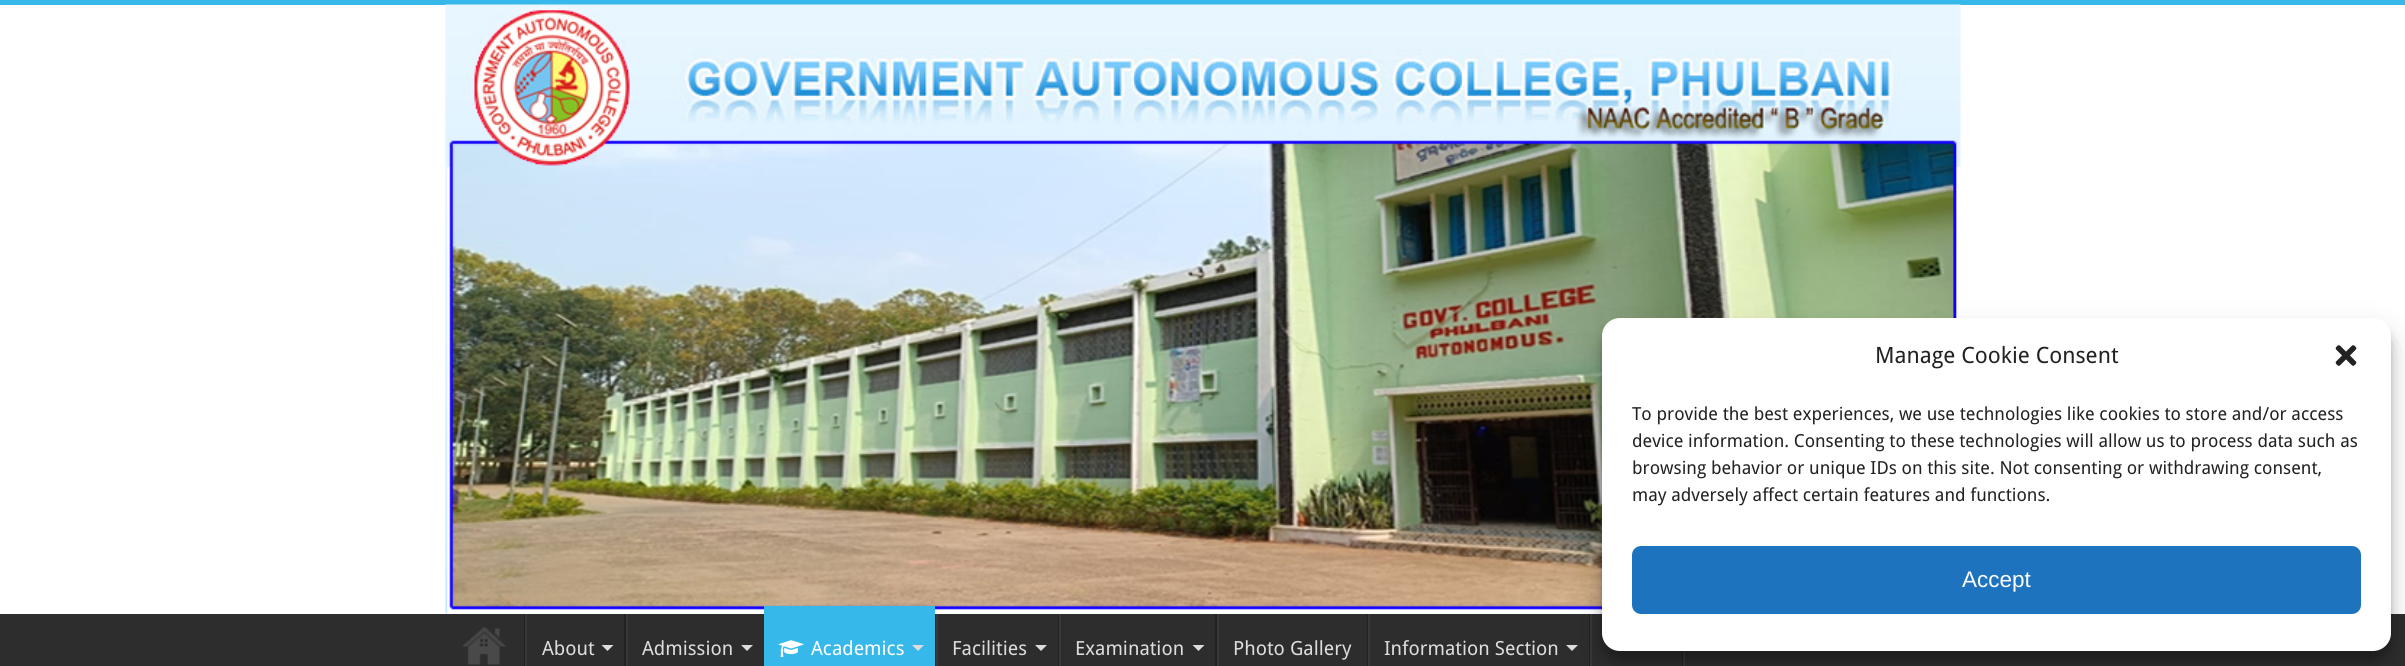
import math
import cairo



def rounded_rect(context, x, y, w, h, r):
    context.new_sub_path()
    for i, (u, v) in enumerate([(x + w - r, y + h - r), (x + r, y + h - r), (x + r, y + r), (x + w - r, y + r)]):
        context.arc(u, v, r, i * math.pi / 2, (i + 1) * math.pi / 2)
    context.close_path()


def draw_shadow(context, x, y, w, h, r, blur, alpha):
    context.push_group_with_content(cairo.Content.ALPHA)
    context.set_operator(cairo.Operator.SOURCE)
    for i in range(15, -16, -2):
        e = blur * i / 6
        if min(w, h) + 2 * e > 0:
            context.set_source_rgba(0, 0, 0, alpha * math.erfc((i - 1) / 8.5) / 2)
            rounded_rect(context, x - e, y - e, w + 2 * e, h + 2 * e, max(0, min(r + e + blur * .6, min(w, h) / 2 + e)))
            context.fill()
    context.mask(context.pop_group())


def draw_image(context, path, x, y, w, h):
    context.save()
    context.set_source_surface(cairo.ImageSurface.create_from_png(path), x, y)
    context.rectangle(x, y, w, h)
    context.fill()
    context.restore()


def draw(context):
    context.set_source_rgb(1, 1, 1)
    context.paint()
    context.set_source_rgb(55 / 255, 184 / 255, 235 / 255)
    context.rectangle(0, 0, 2405, 5)
    context.fill()
    draw_image(context, "images/2.png", 445, 4, 1516, 610)
    context.set_source_rgb(45 / 255, 45 / 255, 45 / 255)
    context.rectangle(0, 614, 2405, 52)
    context.fill()
    context.set_source_rgb(34 / 255, 34 / 255, 34 / 255)
    context.rectangle(1589, 614, 1, 52)
    context.fill()
    context.set_source_rgb(56 / 255, 56 / 255, 56 / 255)
    context.rectangle(1590, 614, 2, 52)
    context.fill()
    context.set_source_rgb(34 / 255, 34 / 255, 34 / 255)
    context.rectangle(1682, 651, 1, 15)
    context.fill()
    context.set_source_rgb(56 / 255, 56 / 255, 56 / 255)
    context.rectangle(1683, 651, 2, 15)
    context.fill()
    context.set_source_rgb(0, 0, 0)
    draw_shadow(context, 1602, 327, 789, 333, 18, 4.5, 0.23)
    context.set_source_rgb(221 / 255, 221 / 255, 221 / 255)
    context.new_path()
    context.move_to(1566, 645)
    context.line_to(1578, 645)
    context.line_to(1572, 651)
    context.close_path()
    context.fill()
    context.set_source_rgb(0, 0, 0)
    draw_shadow(context, 1602, 333, 789, 333, 18, 15, 0.19)
    context.set_source_rgb(1, 1, 1)
    rounded_rect(context, 1602, 318, 789, 333, 18)
    context.fill()
    draw_image(context, "images/1.png", 2335, 345, 22, 21)
    context.set_source_rgb(30 / 255, 115 / 255, 190 / 255)
    rounded_rect(context, 1633, 547, 727, 66, 8)
    context.fill_preserve()
    context.stroke()
    draw_image(context, "images/3.png", 462, 627, 44, 38)
    context.set_source_rgb(34 / 255, 34 / 255, 34 / 255)
    context.rectangle(524, 614, 1, 52)
    context.fill()
    context.set_source_rgb(56 / 255, 56 / 255, 56 / 255)
    context.rectangle(525, 614, 2, 52)
    context.fill()
    context.set_source_rgb(221 / 255, 221 / 255, 221 / 255)
    context.new_path()
    context.move_to(601.5, 645)
    context.line_to(613.5, 645)
    context.line_to(607.5, 651)
    context.close_path()
    context.fill()
    context.set_source_rgb(34 / 255, 34 / 255, 34 / 255)
    context.rectangle(624, 614, 2, 52)
    context.fill()
    context.set_source_rgb(56 / 255, 56 / 255, 56 / 255)
    context.rectangle(626, 614, 2, 52)
    context.fill()
    context.set_source_rgb(221 / 255, 221 / 255, 221 / 255)
    context.new_path()
    context.move_to(741, 645)
    context.line_to(753, 645)
    context.line_to(747, 651)
    context.close_path()
    context.fill()
    context.set_source_rgb(55 / 255, 184 / 255, 235 / 255)
    context.rectangle(764, 606, 171, 60)
    context.fill()
    draw_image(context, "images/4.png", 778, 640, 26, 17)
    context.set_source_rgb(221 / 255, 221 / 255, 221 / 255)
    context.new_path()
    context.move_to(912, 645)
    context.line_to(924, 645)
    context.line_to(918, 651)
    context.close_path()
    context.fill()
    context.set_source_rgb(34 / 255, 34 / 255, 34 / 255)
    context.rectangle(935, 614, 1, 52)
    context.fill()
    context.set_source_rgb(56 / 255, 56 / 255, 56 / 255)
    context.rectangle(936, 614, 2, 52)
    context.fill()
    context.set_source_rgb(221 / 255, 221 / 255, 221 / 255)
    context.new_path()
    context.move_to(1035, 645)
    context.line_to(1047, 645)
    context.line_to(1041, 651)
    context.close_path()
    context.fill()
    context.set_source_rgb(34 / 255, 34 / 255, 34 / 255)
    context.rectangle(1058, 614, 1, 52)
    context.fill()
    context.set_source_rgb(56 / 255, 56 / 255, 56 / 255)
    context.rectangle(1059, 614, 2, 52)
    context.fill()
    context.set_source_rgb(221 / 255, 221 / 255, 221 / 255)
    context.new_path()
    context.move_to(1192.5, 645)
    context.line_to(1204.5, 645)
    context.line_to(1198.5, 651)
    context.close_path()
    context.fill()
    context.set_source_rgb(34 / 255, 34 / 255, 34 / 255)
    context.rectangle(1215, 614, 2, 52)
    context.fill()
    context.set_source_rgb(56 / 255, 56 / 255, 56 / 255)
    context.rectangle(1217, 614, 2, 52)
    context.fill()
    context.set_source_rgb(34 / 255, 34 / 255, 34 / 255)
    context.rectangle(1367, 614, 1, 52)
    context.fill()
    context.set_source_rgb(56 / 255, 56 / 255, 56 / 255)
    context.rectangle(1368, 614, 2, 52)
    context.fill()
    context.select_font_face("Droid Sans")
    context.set_font_size(22.5)
    context.set_source_rgb(34 / 255, 34 / 255, 34 / 255)
    context.move_to(1875, 363)
    context.show_text("Manage Cookie Consent")
    context.set_font_size(18)
    context.move_to(1632, 420)
    context.show_text("To provide the best experiences, we use technologies like cookies to store and/or access")
    context.move_to(1632, 447)
    context.show_text("device information. Consenting to these technologies will allow us to process data such as")
    context.move_to(1632, 474)
    context.show_text("browsing behavior or unique IDs on this site. Not consenting or withdrawing consent,")
    context.move_to(1632, 501)
    context.show_text("may adversely affect certain features and functions.")
    context.select_font_face("Liberation Sans")
    context.set_font_size(22.5)
    context.set_source_rgb(1, 1, 1)
    context.move_to(1962, 587)
    context.show_text("Accept")
    context.select_font_face("Droid Sans")
    context.set_font_size(19.5)
    context.set_source_rgb(221 / 255, 221 / 255, 221 / 255)
    context.move_to(542, 655)
    context.show_text("About")
    context.move_to(642, 655)
    context.show_text("Admission")
    context.set_source_rgb(1, 1, 1)
    context.move_to(811, 655)
    context.show_text("Academics")
    context.set_source_rgb(221 / 255, 221 / 255, 221 / 255)
    context.move_to(952, 655)
    context.show_text("Facilities")
    context.move_to(1075, 655)
    context.show_text("Examination")
    context.move_to(1233, 655)
    context.show_text("Photo Gallery")
    context.move_to(1384, 655)
    context.show_text("Information Section")


surface = cairo.ImageSurface(cairo.Format.RGB24, 2405, 666)
context = cairo.Context(surface)
options = cairo.FontOptions()
options.set_hint_metrics(cairo.HintMetrics.OFF)
options.set_hint_style(cairo.HintStyle.NONE)
context.set_font_options(options)
context.set_miter_limit(4)
draw(context)
surface.write_to_png("out.png")
